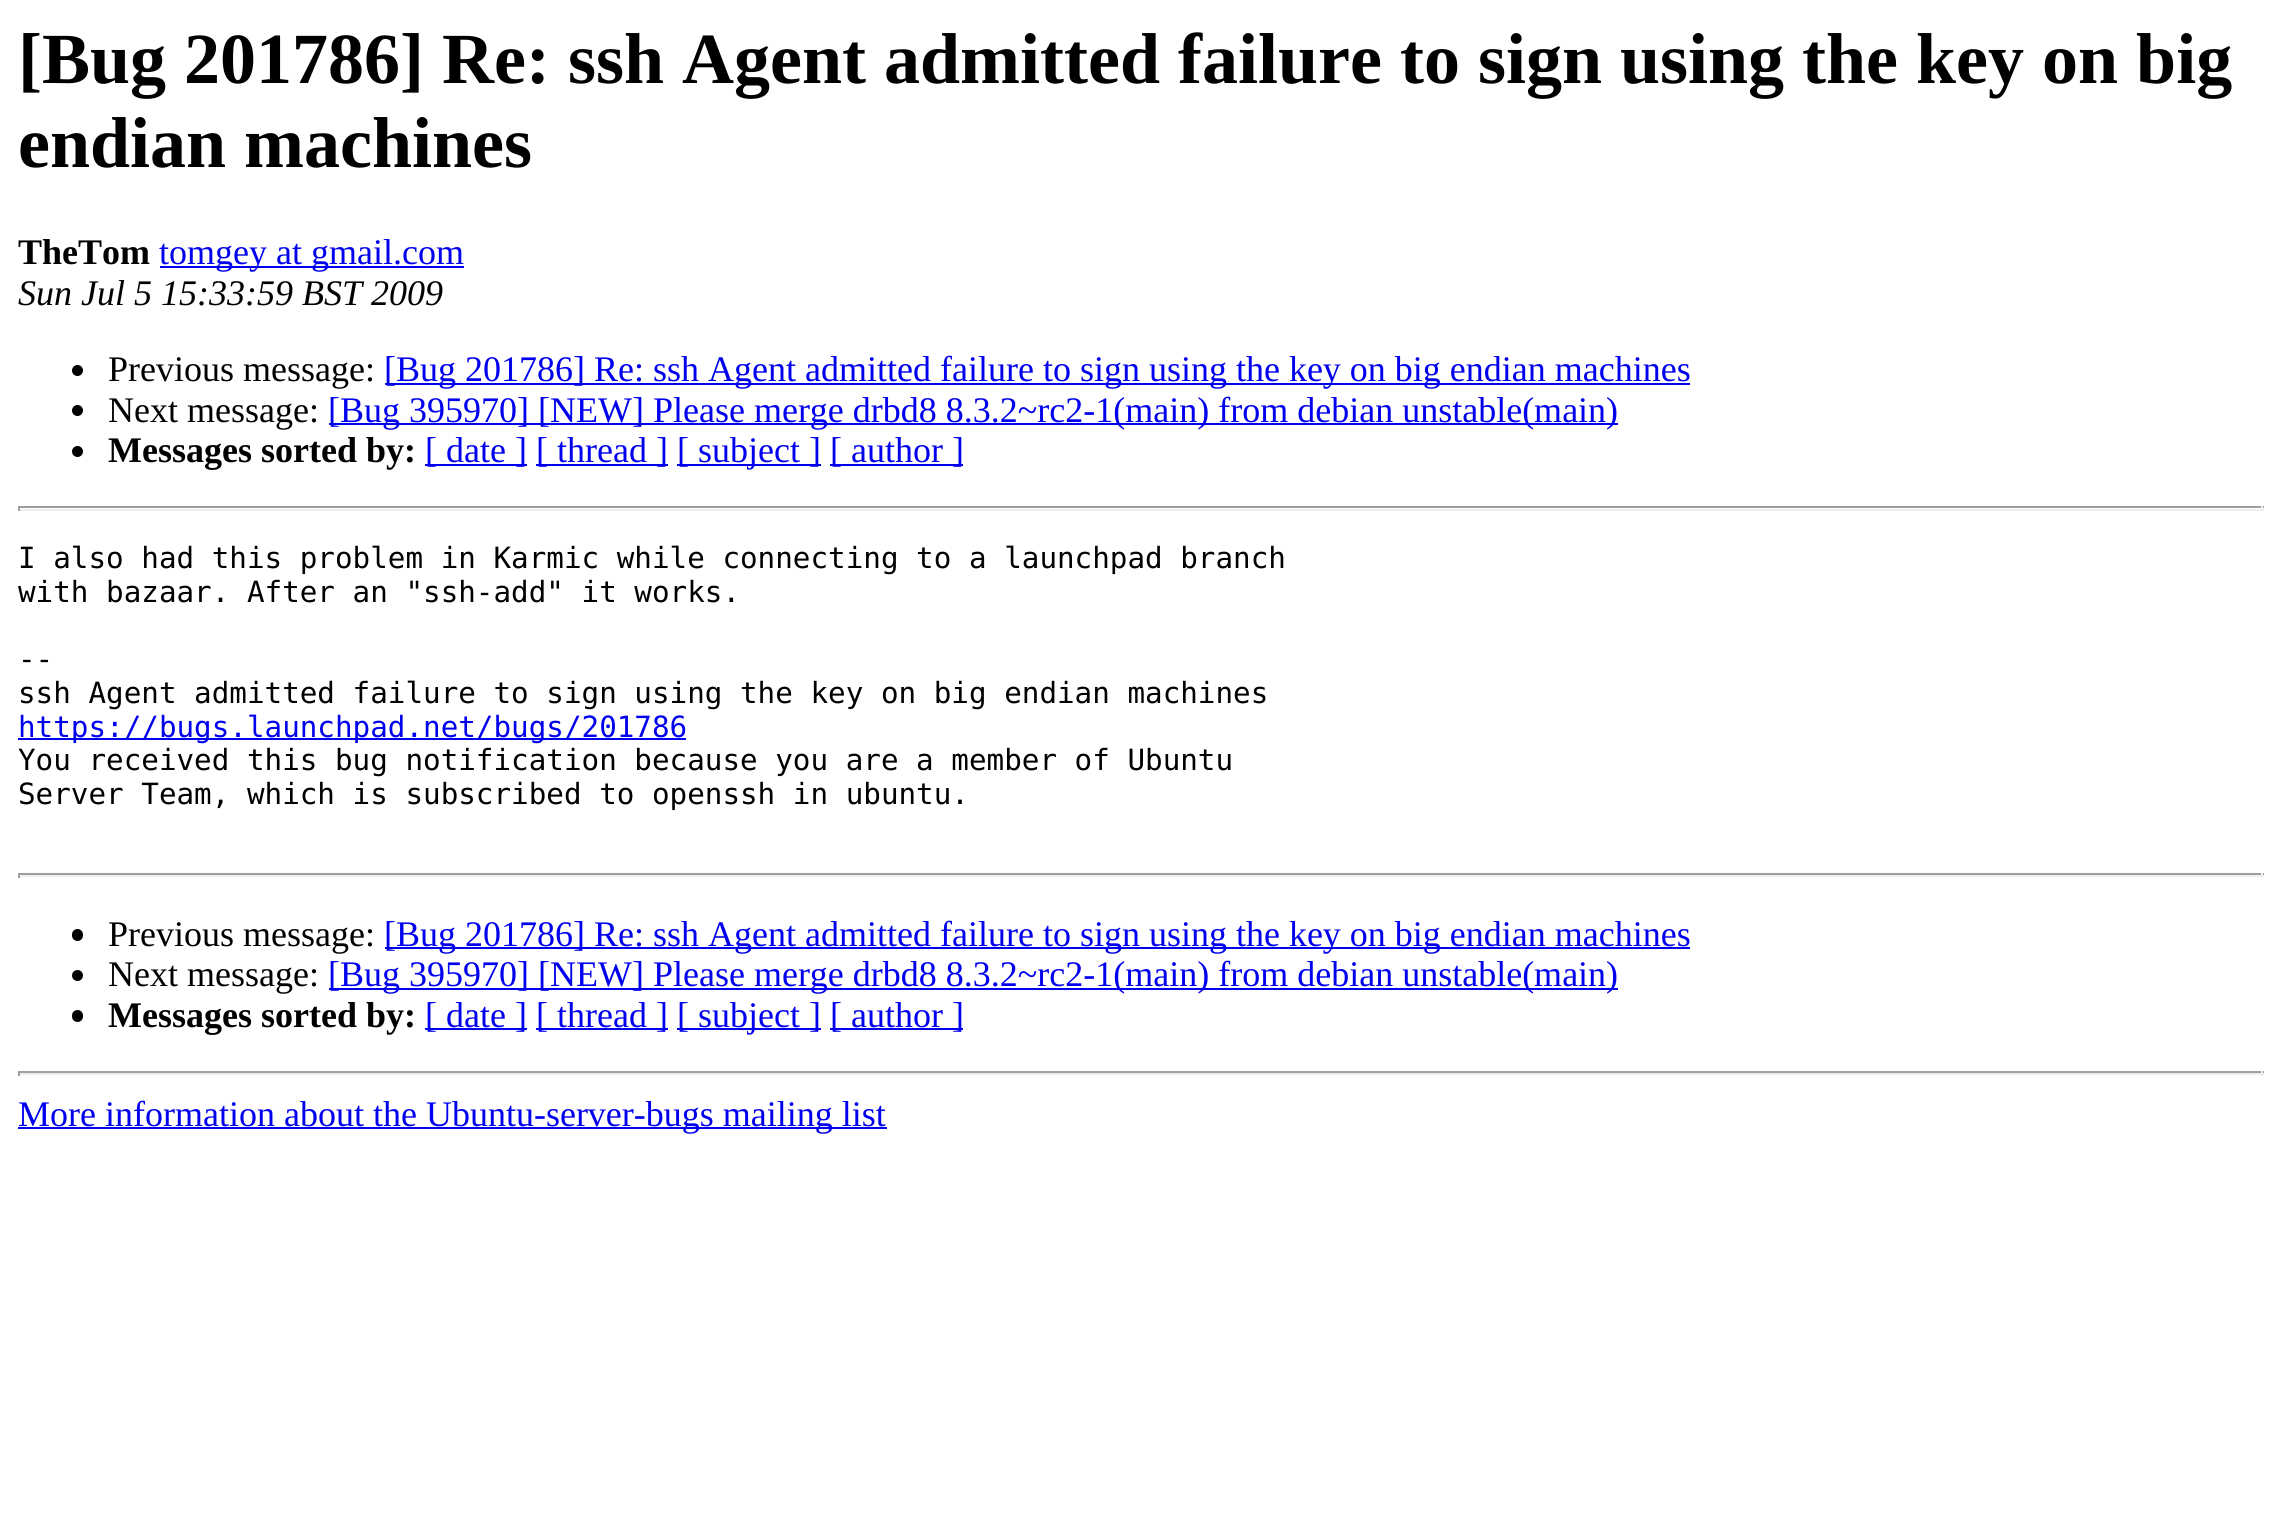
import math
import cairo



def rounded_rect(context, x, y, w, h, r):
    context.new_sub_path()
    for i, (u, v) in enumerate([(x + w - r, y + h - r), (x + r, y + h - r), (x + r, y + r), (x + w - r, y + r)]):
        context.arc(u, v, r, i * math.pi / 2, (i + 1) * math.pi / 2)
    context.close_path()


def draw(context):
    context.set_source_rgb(1, 1, 1)
    context.paint()
    context.set_source_rgb(0, 0, 238 / 255)
    context.rectangle(160, 266, 304, 2)
    context.fill()
    context.set_source_rgb(0, 0, 0)
    context.arc(77.5, 370.5, 5.5, 0, 2 * math.pi)
    context.fill()
    context.set_source_rgb(0, 0, 238 / 255)
    context.rectangle(385, 383, 1305, 2)
    context.fill()
    context.set_source_rgb(0, 0, 0)
    context.arc(77.5, 410.5, 5.5, 0, 2 * math.pi)
    context.fill()
    context.set_source_rgb(0, 0, 238 / 255)
    context.rectangle(329, 423, 1289, 2)
    context.fill()
    context.set_source_rgb(0, 0, 0)
    context.arc(77.5, 451.5, 5.5, 0, 2 * math.pi)
    context.fill()
    context.set_source_rgb(0, 0, 238 / 255)
    context.rectangle(425, 464, 102, 2)
    context.fill()
    context.rectangle(536, 464, 132, 2)
    context.fill()
    context.rectangle(677, 464, 144, 2)
    context.fill()
    context.rectangle(830, 464, 133, 2)
    context.fill()
    context.set_source_rgb(159 / 255, 159 / 255, 159 / 255)
    context.rectangle(18, 506, 2246, 2)
    context.fill()
    context.set_source_rgb(238 / 255, 238 / 255, 238 / 255)
    context.rectangle(2261, 506, 2, 5)
    context.fill()
    context.rectangle(18, 509, 2246, 2)
    context.fill()
    context.set_source_rgb(159 / 255, 159 / 255, 159 / 255)
    context.rectangle(18, 506, 2, 5)
    context.fill()
    context.set_source_rgb(0, 0, 238 / 255)
    context.rectangle(18, 738, 668, 2)
    context.fill()
    context.set_source_rgb(159 / 255, 159 / 255, 159 / 255)
    context.rectangle(18, 873, 2246, 2)
    context.fill()
    context.set_source_rgb(238 / 255, 238 / 255, 238 / 255)
    context.rectangle(2261, 873, 2, 5)
    context.fill()
    context.rectangle(18, 875, 2246, 2)
    context.fill()
    context.set_source_rgb(159 / 255, 159 / 255, 159 / 255)
    context.rectangle(18, 873, 2, 5)
    context.fill()
    context.set_source_rgb(0, 0, 0)
    rounded_rect(context, 72, 929, 11, 12, 5.5)
    context.fill()
    context.set_source_rgb(0, 0, 238 / 255)
    context.rectangle(385, 947, 1305, 2)
    context.fill()
    context.set_source_rgb(0, 0, 0)
    context.arc(77.5, 975.5, 5.5, 0, 2 * math.pi)
    context.fill()
    context.set_source_rgb(0, 0, 238 / 255)
    context.rectangle(329, 988, 1289, 2)
    context.fill()
    context.set_source_rgb(0, 0, 0)
    rounded_rect(context, 72, 1010, 11, 12, 5.5)
    context.fill()
    context.set_source_rgb(0, 0, 238 / 255)
    context.rectangle(425, 1028, 102, 2)
    context.fill()
    context.rectangle(536, 1028, 132, 2)
    context.fill()
    context.rectangle(677, 1028, 144, 2)
    context.fill()
    context.rectangle(830, 1028, 133, 2)
    context.fill()
    context.set_source_rgb(159 / 255, 159 / 255, 159 / 255)
    context.rectangle(18, 1071, 2246, 2)
    context.fill()
    context.set_source_rgb(238 / 255, 238 / 255, 238 / 255)
    context.rectangle(2261, 1071, 2, 5)
    context.fill()
    context.rectangle(18, 1073, 2246, 2)
    context.fill()
    context.set_source_rgb(159 / 255, 159 / 255, 159 / 255)
    context.rectangle(18, 1071, 2, 5)
    context.fill()
    context.set_source_rgb(0, 0, 238 / 255)
    context.rectangle(18, 1127, 869, 2)
    context.fill()
    context.select_font_face("Liberation Serif", cairo.FontSlant.NORMAL, cairo.FontWeight.BOLD)
    context.set_font_size(72)
    context.set_source_rgb(0, 0, 0)
    context.move_to(18, 83)
    context.show_text("[Bug 201786] Re: ssh Agent admitted failure to sign using the key on big")
    context.move_to(18, 167)
    context.show_text("endian machines")
    context.set_font_size(36)
    context.move_to(18, 264)
    context.show_text("TheTom")
    context.select_font_face("Liberation Serif")
    context.set_source_rgb(0, 0, 238 / 255)
    context.move_to(159, 264)
    context.show_text("tomgey at gmail.com")
    context.select_font_face("Liberation Serif", cairo.FontSlant.ITALIC)
    context.set_source_rgb(0, 0, 0)
    context.move_to(18, 305)
    context.show_text("Sun Jul 5 15:33:59 BST 2009")
    context.select_font_face("Liberation Serif")
    context.move_to(108, 381)
    context.show_text("Previous message:")
    context.set_source_rgb(0, 0, 238 / 255)
    context.move_to(384, 381)
    context.show_text("[Bug 201786] Re: ssh Agent admitted failure to sign using the key on big endian machines")
    context.set_source_rgb(0, 0, 0)
    context.move_to(108, 422)
    context.show_text("Next message:")
    context.set_source_rgb(0, 0, 238 / 255)
    context.move_to(328, 422)
    context.show_text("[Bug 395970] [NEW] Please merge drbd8 8.3.2~rc2-1(main) from debian unstable(main)")
    context.select_font_face("Liberation Serif", cairo.FontSlant.NORMAL, cairo.FontWeight.BOLD)
    context.set_source_rgb(0, 0, 0)
    context.move_to(108, 462)
    context.show_text("Messages sorted by:")
    context.select_font_face("Liberation Serif")
    context.set_source_rgb(0, 0, 238 / 255)
    context.move_to(425, 462)
    context.show_text("[ date ]")
    context.move_to(536, 462)
    context.show_text("[ thread ]")
    context.move_to(677, 462)
    context.show_text("[ subject ]")
    context.move_to(830, 462)
    context.show_text("[ author ]")
    context.select_font_face("DejaVu Sans Mono")
    context.set_font_size(29.25)
    context.set_source_rgb(0, 0, 0)
    context.move_to(18, 568)
    context.show_text("I also had this problem in Karmic while connecting to a launchpad branch")
    context.move_to(18, 602)
    context.show_text("with bazaar. After an \"ssh-add\" it works.")
    context.move_to(18, 669)
    context.show_text("--")
    context.move_to(18, 703)
    context.show_text("ssh Agent admitted failure to sign using the key on big endian machines")
    context.set_source_rgb(0, 0, 238 / 255)
    context.move_to(18, 737)
    context.show_text("https://bugs.launchpad.net/bugs/201786")
    context.set_source_rgb(0, 0, 0)
    context.move_to(18, 770)
    context.show_text("You received this bug notification because you are a member of Ubuntu")
    context.move_to(18, 804)
    context.show_text("Server Team, which is subscribed to openssh in ubuntu.")
    context.select_font_face("Liberation Serif")
    context.set_font_size(36)
    context.move_to(108, 946)
    context.show_text("Previous message:")
    context.set_source_rgb(0, 0, 238 / 255)
    context.move_to(384, 946)
    context.show_text("[Bug 201786] Re: ssh Agent admitted failure to sign using the key on big endian machines")
    context.set_source_rgb(0, 0, 0)
    context.move_to(108, 986)
    context.show_text("Next message:")
    context.set_source_rgb(0, 0, 238 / 255)
    context.move_to(328, 986)
    context.show_text("[Bug 395970] [NEW] Please merge drbd8 8.3.2~rc2-1(main) from debian unstable(main)")
    context.select_font_face("Liberation Serif", cairo.FontSlant.NORMAL, cairo.FontWeight.BOLD)
    context.set_source_rgb(0, 0, 0)
    context.move_to(108, 1027)
    context.show_text("Messages sorted by:")
    context.select_font_face("Liberation Serif")
    context.set_source_rgb(0, 0, 238 / 255)
    context.move_to(425, 1027)
    context.show_text("[ date ]")
    context.move_to(536, 1027)
    context.show_text("[ thread ]")
    context.move_to(677, 1027)
    context.show_text("[ subject ]")
    context.move_to(830, 1027)
    context.show_text("[ author ]")
    context.move_to(18, 1126)
    context.show_text("More information about the Ubuntu-server-bugs mailing list")


surface = cairo.ImageSurface(cairo.Format.RGB24, 2280, 1532)
context = cairo.Context(surface)
options = cairo.FontOptions()
options.set_hint_metrics(cairo.HintMetrics.OFF)
options.set_hint_style(cairo.HintStyle.NONE)
context.set_font_options(options)
context.set_miter_limit(4)
draw(context)
surface.write_to_png("out.png")
